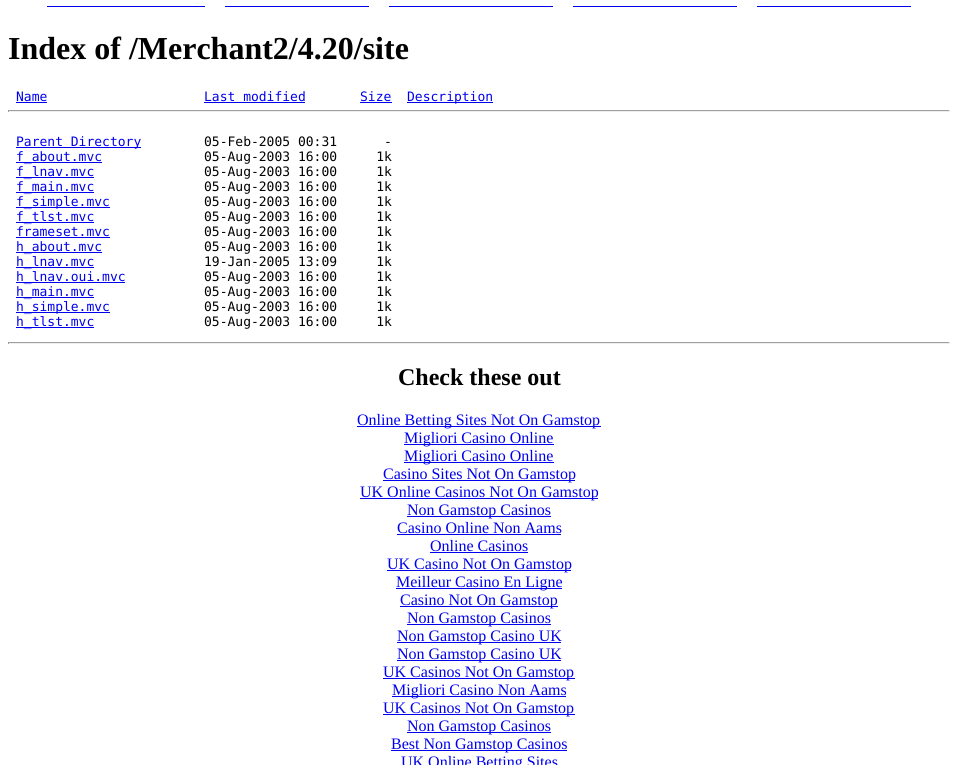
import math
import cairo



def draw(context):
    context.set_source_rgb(1, 1, 1)
    context.paint()
    context.set_source_rgb(0, 0, 238 / 255)
    context.rectangle(47, 6, 158, 1)
    context.fill()
    context.rectangle(225, 6, 144, 1)
    context.fill()
    context.rectangle(389, 6, 164, 1)
    context.fill()
    context.rectangle(573, 6, 164, 1)
    context.fill()
    context.rectangle(757, 6, 154, 1)
    context.fill()
    context.rectangle(16, 102, 31, 1)
    context.fill()
    context.rectangle(204, 102, 101, 1)
    context.fill()
    context.rectangle(360, 102, 32, 1)
    context.fill()
    context.rectangle(407, 102, 86, 1)
    context.fill()
    context.set_source_rgb(159 / 255, 159 / 255, 159 / 255)
    context.rectangle(8, 110, 942, 1)
    context.fill()
    context.set_source_rgb(238 / 255, 238 / 255, 238 / 255)
    context.rectangle(949, 110, 1, 2)
    context.fill()
    context.rectangle(8, 111, 942, 1)
    context.fill()
    context.set_source_rgb(159 / 255, 159 / 255, 159 / 255)
    context.rectangle(8, 110, 1, 2)
    context.fill()
    context.set_source_rgb(0, 0, 238 / 255)
    context.rectangle(16, 147, 125, 1)
    context.fill()
    context.rectangle(16, 162, 86, 1)
    context.fill()
    context.rectangle(16, 177, 78, 1)
    context.fill()
    context.rectangle(16, 192, 78, 1)
    context.fill()
    context.rectangle(16, 207, 94, 1)
    context.fill()
    context.rectangle(16, 222, 78, 1)
    context.fill()
    context.rectangle(16, 237, 94, 1)
    context.fill()
    context.rectangle(16, 252, 86, 1)
    context.fill()
    context.rectangle(16, 267, 78, 1)
    context.fill()
    context.rectangle(16, 282, 109, 1)
    context.fill()
    context.rectangle(16, 297, 78, 1)
    context.fill()
    context.rectangle(16, 312, 94, 1)
    context.fill()
    context.rectangle(16, 327, 78, 1)
    context.fill()
    context.set_source_rgb(159 / 255, 159 / 255, 159 / 255)
    context.rectangle(8, 342, 942, 1)
    context.fill()
    context.set_source_rgb(238 / 255, 238 / 255, 238 / 255)
    context.rectangle(949, 342, 1, 2)
    context.fill()
    context.rectangle(8, 343, 942, 1)
    context.fill()
    context.set_source_rgb(159 / 255, 159 / 255, 159 / 255)
    context.rectangle(8, 342, 1, 2)
    context.fill()
    context.set_source_rgb(0, 0, 238 / 255)
    context.rectangle(357, 426, 244, 1)
    context.fill()
    context.rectangle(404, 444, 150, 1)
    context.fill()
    context.rectangle(404, 462, 150, 1)
    context.fill()
    context.rectangle(383, 480, 192, 1)
    context.fill()
    context.rectangle(360, 498, 238, 1)
    context.fill()
    context.rectangle(407, 516, 144, 1)
    context.fill()
    context.rectangle(397, 534, 164, 1)
    context.fill()
    context.rectangle(430, 552, 98, 1)
    context.fill()
    context.rectangle(387, 570, 184, 1)
    context.fill()
    context.rectangle(396, 588, 166, 1)
    context.fill()
    context.rectangle(400, 606, 158, 1)
    context.fill()
    context.rectangle(407, 624, 144, 1)
    context.fill()
    context.rectangle(397, 642, 164, 1)
    context.fill()
    context.rectangle(397, 660, 164, 1)
    context.fill()
    context.rectangle(383, 678, 192, 1)
    context.fill()
    context.rectangle(392, 696, 174, 1)
    context.fill()
    context.rectangle(383, 714, 192, 1)
    context.fill()
    context.rectangle(407, 732, 144, 1)
    context.fill()
    context.rectangle(391, 750, 176, 1)
    context.fill()
    context.select_font_face("Liberation Serif", cairo.FontSlant.NORMAL, cairo.FontWeight.BOLD)
    context.set_font_size(32)
    context.set_source_rgb(0, 0, 0)
    context.move_to(8, 59)
    context.show_text("Index of /Merchant2/4.20/site")
    context.select_font_face("DejaVu Sans Mono")
    context.set_font_size(13)
    context.set_source_rgb(0, 0, 238 / 255)
    context.move_to(16, 101)
    context.show_text("Name")
    context.move_to(204, 101)
    context.show_text("Last modified")
    context.move_to(360, 101)
    context.show_text("Size")
    context.move_to(407, 101)
    context.show_text("Description")
    context.move_to(16, 146)
    context.show_text("Parent Directory")
    context.set_source_rgb(0, 0, 0)
    context.move_to(204, 146)
    context.show_text("05-Feb-2005 00:31      -")
    context.set_source_rgb(0, 0, 238 / 255)
    context.move_to(16, 161)
    context.show_text("f_about.mvc")
    context.set_source_rgb(0, 0, 0)
    context.move_to(204, 161)
    context.show_text("05-Aug-2003 16:00     1k")
    context.set_source_rgb(0, 0, 238 / 255)
    context.move_to(16, 176)
    context.show_text("f_lnav.mvc")
    context.set_source_rgb(0, 0, 0)
    context.move_to(204, 176)
    context.show_text("05-Aug-2003 16:00     1k")
    context.set_source_rgb(0, 0, 238 / 255)
    context.move_to(16, 191)
    context.show_text("f_main.mvc")
    context.set_source_rgb(0, 0, 0)
    context.move_to(204, 191)
    context.show_text("05-Aug-2003 16:00     1k")
    context.set_source_rgb(0, 0, 238 / 255)
    context.move_to(16, 206)
    context.show_text("f_simple.mvc")
    context.set_source_rgb(0, 0, 0)
    context.move_to(204, 206)
    context.show_text("05-Aug-2003 16:00     1k")
    context.set_source_rgb(0, 0, 238 / 255)
    context.move_to(16, 221)
    context.show_text("f_tlst.mvc")
    context.set_source_rgb(0, 0, 0)
    context.move_to(204, 221)
    context.show_text("05-Aug-2003 16:00     1k")
    context.set_source_rgb(0, 0, 238 / 255)
    context.move_to(16, 236)
    context.show_text("frameset.mvc")
    context.set_source_rgb(0, 0, 0)
    context.move_to(204, 236)
    context.show_text("05-Aug-2003 16:00     1k")
    context.set_source_rgb(0, 0, 238 / 255)
    context.move_to(16, 251)
    context.show_text("h_about.mvc")
    context.set_source_rgb(0, 0, 0)
    context.move_to(204, 251)
    context.show_text("05-Aug-2003 16:00     1k")
    context.set_source_rgb(0, 0, 238 / 255)
    context.move_to(16, 266)
    context.show_text("h_lnav.mvc")
    context.set_source_rgb(0, 0, 0)
    context.move_to(204, 266)
    context.show_text("19-Jan-2005 13:09     1k")
    context.set_source_rgb(0, 0, 238 / 255)
    context.move_to(16, 281)
    context.show_text("h_lnav.oui.mvc")
    context.set_source_rgb(0, 0, 0)
    context.move_to(204, 281)
    context.show_text("05-Aug-2003 16:00     1k")
    context.set_source_rgb(0, 0, 238 / 255)
    context.move_to(16, 296)
    context.show_text("h_main.mvc")
    context.set_source_rgb(0, 0, 0)
    context.move_to(204, 296)
    context.show_text("05-Aug-2003 16:00     1k")
    context.set_source_rgb(0, 0, 238 / 255)
    context.move_to(16, 311)
    context.show_text("h_simple.mvc")
    context.set_source_rgb(0, 0, 0)
    context.move_to(204, 311)
    context.show_text("05-Aug-2003 16:00     1k")
    context.set_source_rgb(0, 0, 238 / 255)
    context.move_to(16, 326)
    context.show_text("h_tlst.mvc")
    context.set_source_rgb(0, 0, 0)
    context.move_to(204, 326)
    context.show_text("05-Aug-2003 16:00     1k")
    context.select_font_face("Liberation Serif", cairo.FontSlant.NORMAL, cairo.FontWeight.BOLD)
    context.set_font_size(24)
    context.move_to(398, 385)
    context.show_text("Check these out")
    context.select_font_face("Liberation Serif")
    context.set_font_size(16)
    context.set_source_rgb(0, 0, 238 / 255)
    context.move_to(357, 425)
    context.show_text("Online Betting Sites Not On Gamstop")
    context.move_to(404, 443)
    context.show_text("Migliori Casino Online")
    context.move_to(404, 461)
    context.show_text("Migliori Casino Online")
    context.move_to(383, 479)
    context.show_text("Casino Sites Not On Gamstop")
    context.move_to(360, 497)
    context.show_text("UK Online Casinos Not On Gamstop")
    context.move_to(407, 515)
    context.show_text("Non Gamstop Casinos")
    context.move_to(397, 533)
    context.show_text("Casino Online Non Aams")
    context.move_to(430, 551)
    context.show_text("Online Casinos")
    context.move_to(387, 569)
    context.show_text("UK Casino Not On Gamstop")
    context.move_to(396, 587)
    context.show_text("Meilleur Casino En Ligne")
    context.move_to(400, 605)
    context.show_text("Casino Not On Gamstop")
    context.move_to(407, 623)
    context.show_text("Non Gamstop Casinos")
    context.move_to(397, 641)
    context.show_text("Non Gamstop Casino UK")
    context.move_to(397, 659)
    context.show_text("Non Gamstop Casino UK")
    context.move_to(383, 677)
    context.show_text("UK Casinos Not On Gamstop")
    context.move_to(392, 695)
    context.show_text("Migliori Casino Non Aams")
    context.move_to(383, 713)
    context.show_text("UK Casinos Not On Gamstop")
    context.move_to(407, 731)
    context.show_text("Non Gamstop Casinos")
    context.move_to(391, 749)
    context.show_text("Best Non Gamstop Casinos")
    context.move_to(401, 767)
    context.show_text("UK Online Betting Sites")


surface = cairo.ImageSurface(cairo.Format.RGB24, 958, 765)
context = cairo.Context(surface)
options = cairo.FontOptions()
options.set_hint_metrics(cairo.HintMetrics.OFF)
options.set_hint_style(cairo.HintStyle.NONE)
context.set_font_options(options)
context.set_miter_limit(4)
draw(context)
surface.write_to_png("out.png")
